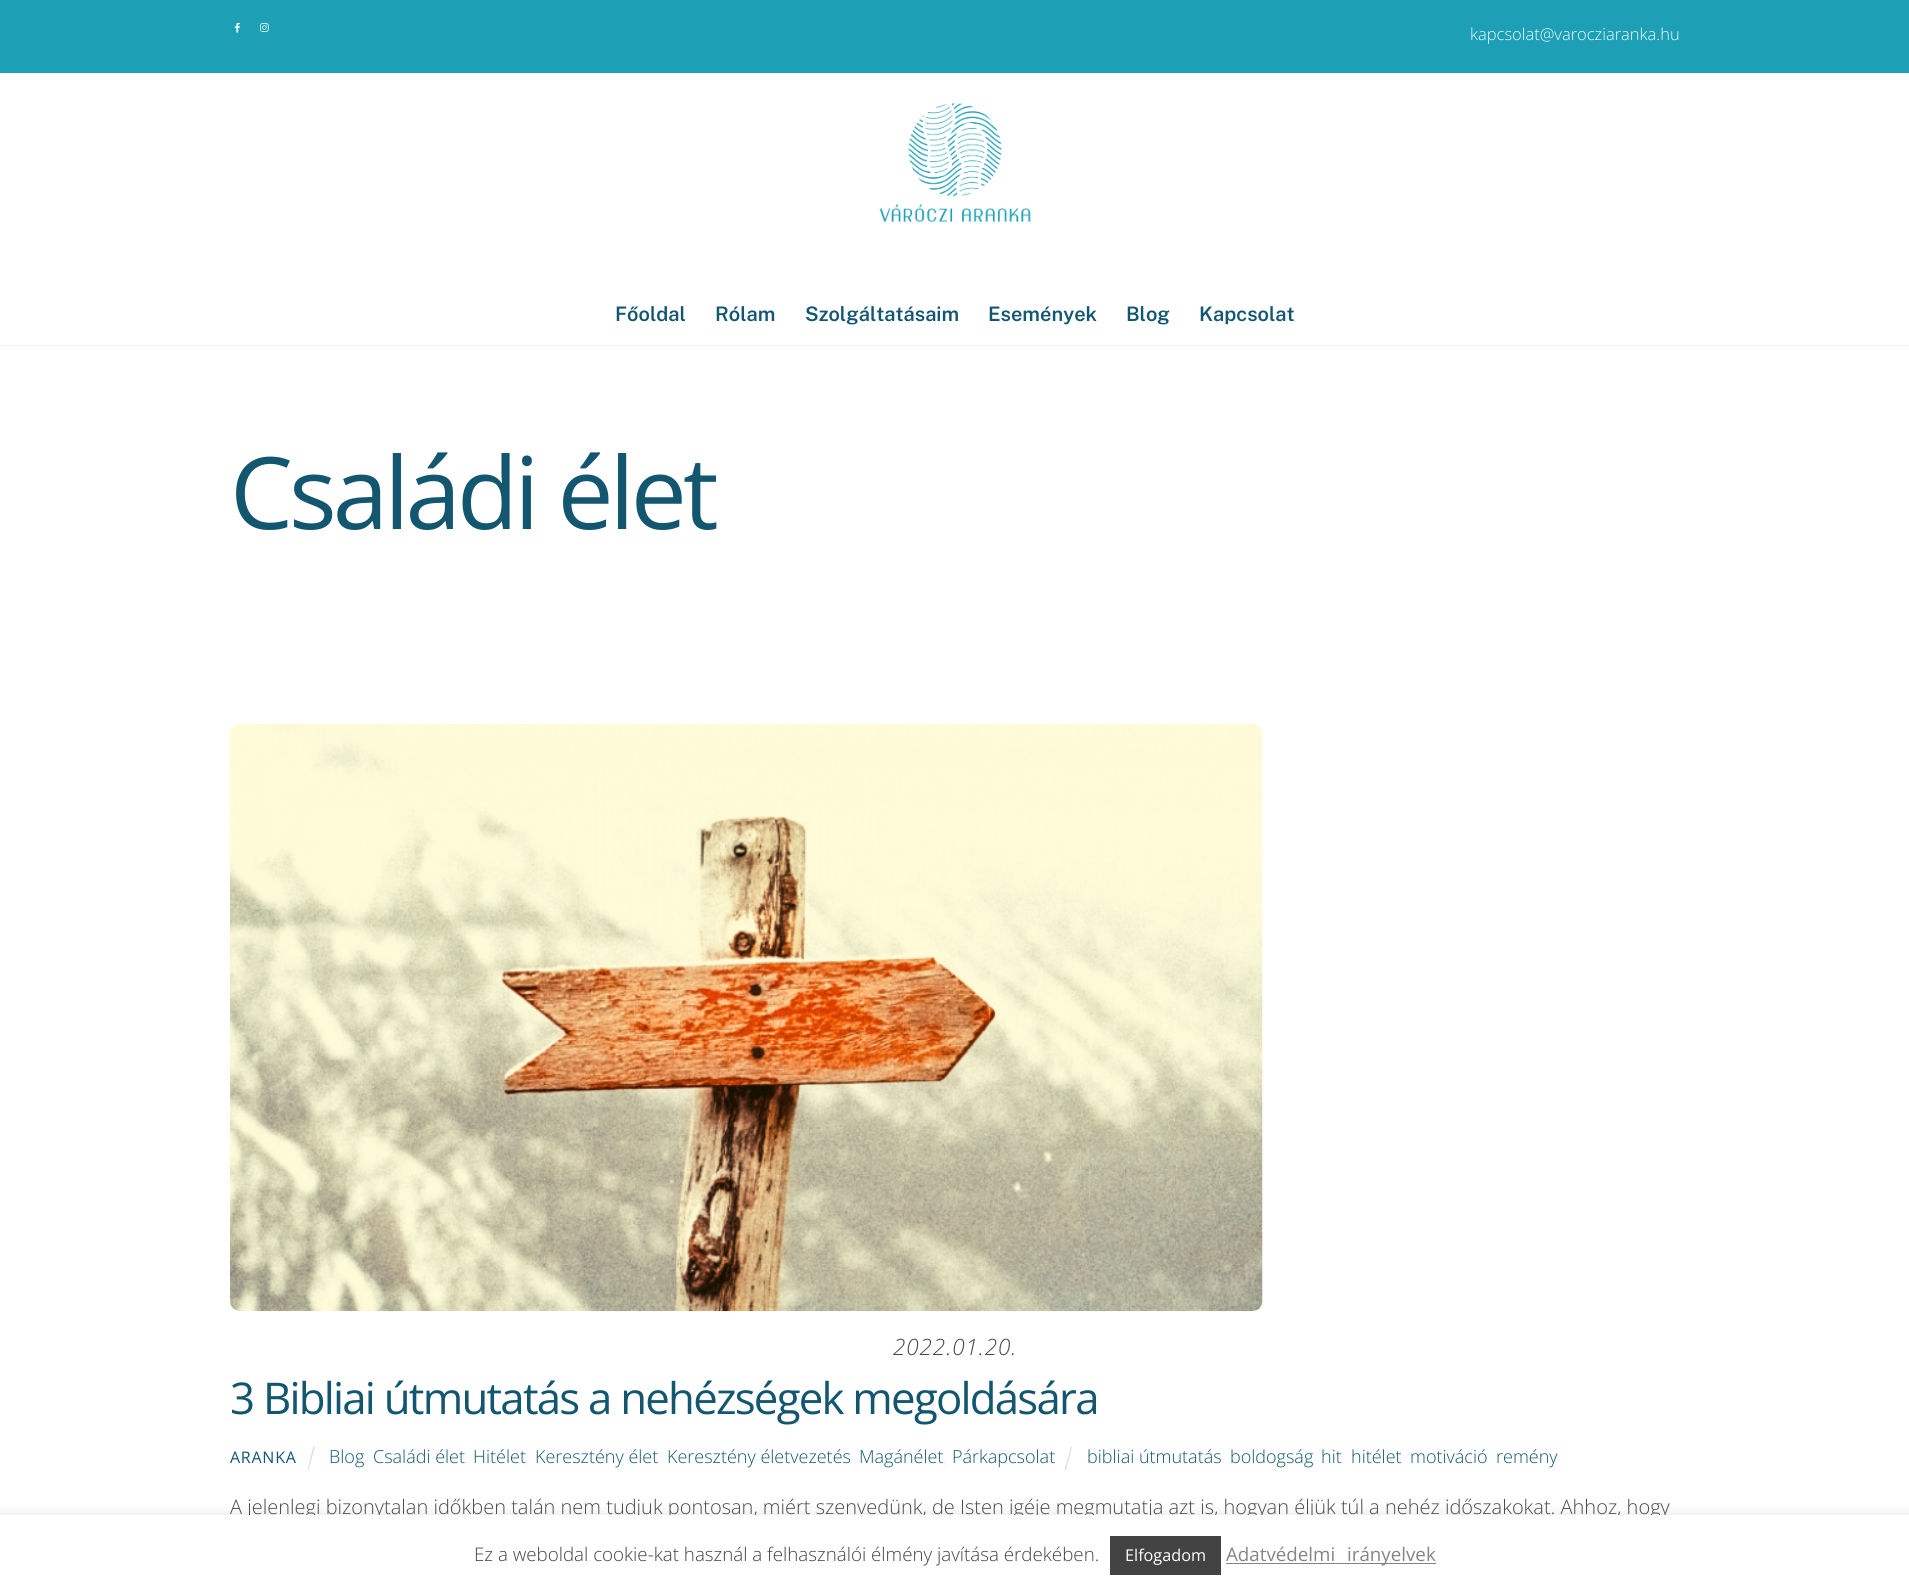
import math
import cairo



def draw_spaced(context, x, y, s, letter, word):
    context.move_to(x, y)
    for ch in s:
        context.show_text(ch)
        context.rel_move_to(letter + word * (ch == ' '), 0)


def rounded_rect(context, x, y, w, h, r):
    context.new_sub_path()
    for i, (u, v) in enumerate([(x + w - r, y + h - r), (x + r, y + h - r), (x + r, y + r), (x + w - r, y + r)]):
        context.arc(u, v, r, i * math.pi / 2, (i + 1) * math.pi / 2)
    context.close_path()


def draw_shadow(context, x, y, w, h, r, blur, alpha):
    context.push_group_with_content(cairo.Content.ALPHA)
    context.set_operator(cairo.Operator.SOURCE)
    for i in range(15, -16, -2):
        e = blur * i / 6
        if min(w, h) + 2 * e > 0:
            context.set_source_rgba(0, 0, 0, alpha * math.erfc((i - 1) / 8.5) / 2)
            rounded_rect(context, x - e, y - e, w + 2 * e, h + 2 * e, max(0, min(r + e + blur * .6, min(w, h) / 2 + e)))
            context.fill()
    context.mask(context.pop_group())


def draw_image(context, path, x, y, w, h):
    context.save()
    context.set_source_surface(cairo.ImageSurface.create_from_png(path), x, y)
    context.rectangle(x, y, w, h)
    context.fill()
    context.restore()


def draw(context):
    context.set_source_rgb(1, 1, 1)
    context.paint()
    context.set_source_rgb(242 / 255, 242 / 255, 242 / 255)
    context.rectangle(0, 345, 1909, 1)
    context.fill()
    context.set_source_rgb(29 / 255, 160 / 255, 181 / 255)
    context.rectangle(0, 0, 1909, 73)
    context.fill()
    draw_image(context, "images/1.png", 234, 23, 6, 10)
    draw_image(context, "images/2.png", 260, 23, 9, 9)
    draw_image(context, "images/3.png", 879, 103, 152, 120)
    draw_image(context, "images/4.png", 230, 724, 1033, 588)
    context.set_source_rgb(219 / 255, 219 / 255, 219 / 255)
    context.new_path()
    context.move_to(313.5, 1446.5)
    context.line_to(315, 1446.5)
    context.line_to(308.5, 1470)
    context.line_to(307.5, 1470)
    context.close_path()
    context.fill()
    context.new_path()
    context.move_to(1071, 1446.5)
    context.line_to(1072, 1446.5)
    context.line_to(1066, 1470)
    context.line_to(1064.5, 1470)
    context.close_path()
    context.fill()
    context.set_source_rgb(172 / 255, 171 / 255, 171 / 255)
    draw_shadow(context, 0, 1514, 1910, 75, 0, 6, 0.3)
    context.select_font_face("Open Sans Light")
    context.set_font_size(16.5)
    context.set_source_rgb(239 / 255, 252 / 255, 1)
    context.move_to(1470, 40)
    context.show_text("kapcsolat@varocziaranka.hu")
    context.select_font_face("Public Sans SemiBold")
    context.set_font_size(20)
    context.set_source_rgb(18 / 255, 86 / 255, 112 / 255)
    context.move_to(615, 321)
    context.show_text("Főoldal")
    context.move_to(715, 321)
    context.show_text("Rólam")
    context.move_to(805, 321)
    context.show_text("Szolgáltatásaim")
    context.move_to(988, 321)
    context.show_text("Események")
    context.move_to(1126, 321)
    context.show_text("Blog")
    context.move_to(1199, 321)
    context.show_text("Kapcsolat")
    context.select_font_face("Open Sans")
    context.set_font_size(100)
    draw_spaced(context, 230, 529, "Családi élet", -4, 0)
    context.select_font_face("Open Sans Light", cairo.FontSlant.ITALIC)
    context.set_font_size(22.5)
    context.set_source_rgb(76 / 255, 74 / 255, 73 / 255)
    draw_spaced(context, 893, 1355, "2022.01.20.", 0.9, 0)
    context.select_font_face("Open Sans")
    context.set_font_size(43.75)
    context.set_source_rgb(18 / 255, 86 / 255, 112 / 255)
    draw_spaced(context, 230, 1414, "3 Bibliai útmutatás a nehézségek megoldására", -1.75, 0)
    context.set_font_size(16)
    draw_spaced(context, 230, 1463, "ARANKA", 0.75, 0)
    context.select_font_face("Open Sans Light")
    context.set_font_size(18)
    context.move_to(329, 1463)
    context.show_text("Blog")
    context.set_source_rgb(237 / 255, 237 / 255, 237 / 255)
    context.move_to(364, 1463)
    context.show_text(",")
    context.set_source_rgb(18 / 255, 86 / 255, 112 / 255)
    context.move_to(373, 1463)
    context.show_text("Családi élet")
    context.move_to(473, 1463)
    context.show_text("Hitélet")
    context.set_source_rgb(237 / 255, 237 / 255, 237 / 255)
    context.move_to(526, 1463)
    context.show_text(",")
    context.set_source_rgb(18 / 255, 86 / 255, 112 / 255)
    context.move_to(535, 1463)
    context.show_text("Keresztény élet")
    context.move_to(667, 1463)
    context.show_text("Keresztény életvezetés")
    context.set_source_rgb(237 / 255, 237 / 255, 237 / 255)
    context.move_to(850, 1463)
    context.show_text(",")
    context.set_source_rgb(18 / 255, 86 / 255, 112 / 255)
    context.move_to(859, 1463)
    context.show_text("Magánélet")
    context.set_source_rgb(237 / 255, 237 / 255, 237 / 255)
    context.move_to(943, 1463)
    context.show_text(",")
    context.set_source_rgb(18 / 255, 86 / 255, 112 / 255)
    context.move_to(952, 1463)
    context.show_text("Párkapcsolat")
    context.move_to(1087, 1463)
    context.show_text("bibliai útmutatás")
    context.move_to(1230, 1463)
    context.show_text("boldogság")
    context.move_to(1321, 1463)
    context.show_text("hit")
    context.move_to(1351, 1463)
    context.show_text("hitélet")
    context.move_to(1410, 1463)
    context.show_text("motiváció")
    context.move_to(1496, 1463)
    context.show_text("remény")
    context.set_font_size(20)
    context.set_source_rgb(76 / 255, 74 / 255, 73 / 255)
    context.move_to(230, 1514)
    context.show_text("A jelenlegi bizonytalan időkben talán nem tudjuk pontosan, miért szenvedünk, de Isten igéje megmutatja azt is, hogyan éljük túl a nehéz időszakokat. Ahhoz, hogy")
    context.set_source_rgb(1, 1, 1)
    context.rectangle(0, 1515, 1909, 75)
    context.fill()
    context.set_font_size(18.75)
    context.set_source_rgb(66 / 255, 66 / 255, 66 / 255)
    context.move_to(474, 1561)
    context.show_text("Ez a weboldal cookie-kat használ a felhasználói élmény javítása érdekében.")
    context.rectangle(1110, 1536, 111, 39)
    context.fill()
    context.select_font_face("Open Sans")
    context.set_font_size(16.25)
    context.set_source_rgb(1, 1, 1)
    context.move_to(1125, 1561)
    context.show_text("Elfogadom")
    context.set_source_rgb(132 / 255, 132 / 255, 132 / 255)
    context.rectangle(1226, 1563, 210, 1)
    context.fill()
    context.set_font_size(18.75)
    draw_spaced(context, 1226, 1561, "Adatvédelmi irányelvek", 0, 7)


surface = cairo.ImageSurface(cairo.Format.RGB24, 1909, 1590)
context = cairo.Context(surface)
options = cairo.FontOptions()
options.set_hint_metrics(cairo.HintMetrics.OFF)
options.set_hint_style(cairo.HintStyle.NONE)
context.set_font_options(options)
context.set_miter_limit(4)
draw(context)
surface.write_to_png("out.png")
